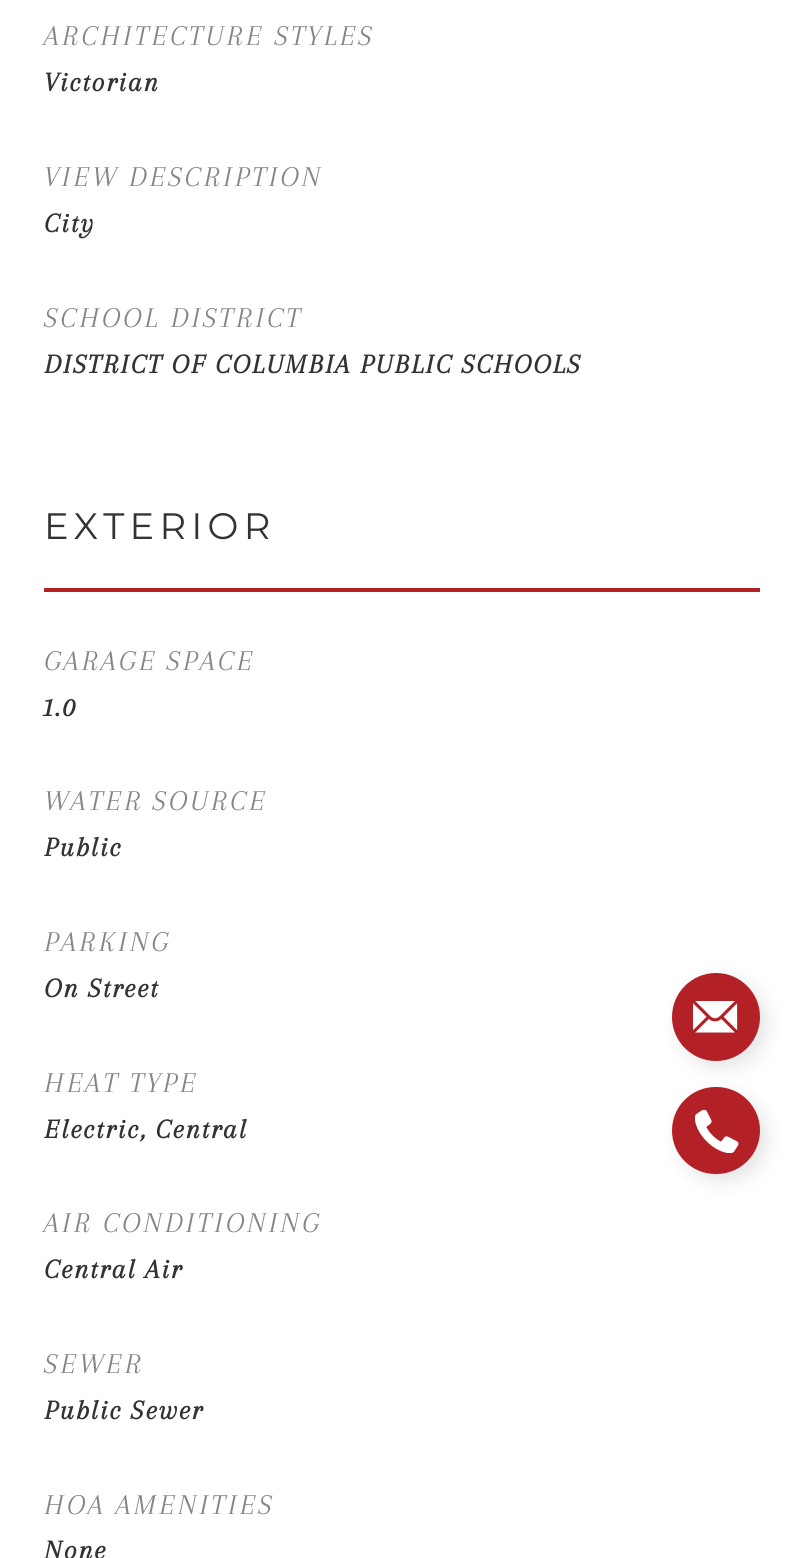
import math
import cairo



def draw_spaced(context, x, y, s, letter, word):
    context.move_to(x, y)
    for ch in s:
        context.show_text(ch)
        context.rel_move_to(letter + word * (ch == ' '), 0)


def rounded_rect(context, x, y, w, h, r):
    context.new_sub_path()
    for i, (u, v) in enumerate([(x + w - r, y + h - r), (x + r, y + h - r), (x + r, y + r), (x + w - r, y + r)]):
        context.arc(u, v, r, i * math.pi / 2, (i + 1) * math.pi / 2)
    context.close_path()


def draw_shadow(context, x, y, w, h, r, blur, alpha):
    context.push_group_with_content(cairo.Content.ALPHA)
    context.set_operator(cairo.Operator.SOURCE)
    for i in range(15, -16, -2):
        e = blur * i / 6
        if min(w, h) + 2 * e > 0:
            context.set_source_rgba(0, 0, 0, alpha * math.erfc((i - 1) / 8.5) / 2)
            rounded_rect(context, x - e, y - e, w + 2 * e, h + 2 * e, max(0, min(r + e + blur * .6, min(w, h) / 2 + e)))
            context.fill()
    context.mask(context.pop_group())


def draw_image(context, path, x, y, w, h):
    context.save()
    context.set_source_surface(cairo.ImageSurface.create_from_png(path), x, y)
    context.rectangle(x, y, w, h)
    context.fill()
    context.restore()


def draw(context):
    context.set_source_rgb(1, 1, 1)
    context.paint()
    context.set_source_rgb(179 / 255, 33 / 255, 39 / 255)
    context.rectangle(44, 588, 716, 4)
    context.fill()
    context.set_source_rgb(0, 0, 0)
    draw_shadow(context, 679, 980, 88, 88, 44, 9, 0.1)
    context.set_source_rgb(179 / 255, 33 / 255, 39 / 255)
    context.arc(716, 1017, 43, 0, 2 * math.pi)
    context.fill_preserve()
    context.stroke()
    draw_image(context, "images/1.png", 693, 1001, 45, 32)
    context.set_source_rgb(0, 0, 0)
    draw_shadow(context, 679, 1094, 88, 87, 43.5, 9, 0.1)
    context.set_source_rgb(179 / 255, 33 / 255, 39 / 255)
    rounded_rect(context, 673, 1088, 86, 85, 42.5)
    context.fill_preserve()
    context.stroke()
    draw_image(context, "images/2.png", 695, 1110, 44, 43)
    context.select_font_face("Arapey", cairo.FontSlant.ITALIC)
    context.set_font_size(29.75)
    context.set_source_rgb(133 / 255, 133 / 255, 133 / 255)
    draw_spaced(context, 44, 45, "ARCHITECTURE STYLES", 2.6, 0)
    context.select_font_face("Arapey", cairo.FontSlant.ITALIC, cairo.FontWeight.BOLD)
    context.set_font_size(28)
    context.set_source_rgb(51 / 255, 51 / 255, 51 / 255)
    draw_spaced(context, 44, 91, "Victorian", 1.75, 0)
    context.select_font_face("Arapey", cairo.FontSlant.ITALIC)
    context.set_font_size(29.75)
    context.set_source_rgb(133 / 255, 133 / 255, 133 / 255)
    draw_spaced(context, 44, 186, "VIEW DESCRIPTION", 2.6, 0)
    context.select_font_face("Arapey", cairo.FontSlant.ITALIC, cairo.FontWeight.BOLD)
    context.set_font_size(28)
    context.set_source_rgb(51 / 255, 51 / 255, 51 / 255)
    draw_spaced(context, 44, 232, "City", 1.75, 0)
    context.select_font_face("Arapey", cairo.FontSlant.ITALIC)
    context.set_font_size(29.75)
    context.set_source_rgb(133 / 255, 133 / 255, 133 / 255)
    draw_spaced(context, 44, 327, "SCHOOL DISTRICT", 2.6, 0)
    context.select_font_face("Arapey", cairo.FontSlant.ITALIC, cairo.FontWeight.BOLD)
    context.set_font_size(28)
    context.set_source_rgb(51 / 255, 51 / 255, 51 / 255)
    draw_spaced(context, 44, 373, "DISTRICT OF COLUMBIA PUBLIC SCHOOLS", 1.75, 0)
    context.select_font_face("Montserrat")
    context.set_font_size(36.75)
    draw_spaced(context, 44, 539, "EXTERIOR", 5.25, 0)
    context.select_font_face("Arapey", cairo.FontSlant.ITALIC)
    context.set_font_size(29.75)
    context.set_source_rgb(133 / 255, 133 / 255, 133 / 255)
    draw_spaced(context, 44, 670, "GARAGE SPACE", 2.6, -1)
    context.select_font_face("Arapey", cairo.FontSlant.ITALIC, cairo.FontWeight.BOLD)
    context.set_font_size(28)
    context.set_source_rgb(51 / 255, 51 / 255, 51 / 255)
    draw_spaced(context, 44, 716, "1.0", 1.75, 0)
    context.select_font_face("Arapey", cairo.FontSlant.ITALIC)
    context.set_font_size(29.75)
    context.set_source_rgb(133 / 255, 133 / 255, 133 / 255)
    draw_spaced(context, 44, 810, "WATER SOURCE", 2.6, -1)
    context.select_font_face("Arapey", cairo.FontSlant.ITALIC, cairo.FontWeight.BOLD)
    context.set_font_size(28)
    context.set_source_rgb(51 / 255, 51 / 255, 51 / 255)
    draw_spaced(context, 44, 856, "Public", 1.75, 0)
    context.select_font_face("Arapey", cairo.FontSlant.ITALIC)
    context.set_font_size(29.75)
    context.set_source_rgb(133 / 255, 133 / 255, 133 / 255)
    draw_spaced(context, 44, 951, "PARKING", 2.6, 0)
    context.select_font_face("Arapey", cairo.FontSlant.ITALIC, cairo.FontWeight.BOLD)
    context.set_font_size(28)
    context.set_source_rgb(51 / 255, 51 / 255, 51 / 255)
    draw_spaced(context, 44, 997, "On Street", 1.75, 0)
    context.select_font_face("Arapey", cairo.FontSlant.ITALIC)
    context.set_font_size(29.75)
    context.set_source_rgb(133 / 255, 133 / 255, 133 / 255)
    draw_spaced(context, 44, 1092, "HEAT TYPE", 2.6, 0)
    context.select_font_face("Arapey", cairo.FontSlant.ITALIC, cairo.FontWeight.BOLD)
    context.set_font_size(28)
    context.set_source_rgb(51 / 255, 51 / 255, 51 / 255)
    draw_spaced(context, 44, 1138, "Electric, Central", 1.75, 0)
    context.select_font_face("Arapey", cairo.FontSlant.ITALIC)
    context.set_font_size(29.75)
    context.set_source_rgb(133 / 255, 133 / 255, 133 / 255)
    draw_spaced(context, 44, 1232, "AIR CONDITIONING", 2.6, 0)
    context.select_font_face("Arapey", cairo.FontSlant.ITALIC, cairo.FontWeight.BOLD)
    context.set_font_size(28)
    context.set_source_rgb(51 / 255, 51 / 255, 51 / 255)
    draw_spaced(context, 44, 1278, "Central Air", 1.75, 0)
    context.select_font_face("Arapey", cairo.FontSlant.ITALIC)
    context.set_font_size(29.75)
    context.set_source_rgb(133 / 255, 133 / 255, 133 / 255)
    draw_spaced(context, 44, 1373, "SEWER", 2.6, 0)
    context.select_font_face("Arapey", cairo.FontSlant.ITALIC, cairo.FontWeight.BOLD)
    context.set_font_size(28)
    context.set_source_rgb(51 / 255, 51 / 255, 51 / 255)
    draw_spaced(context, 44, 1419, "Public Sewer", 1.75, 0)
    context.select_font_face("Arapey", cairo.FontSlant.ITALIC)
    context.set_font_size(29.75)
    context.set_source_rgb(133 / 255, 133 / 255, 133 / 255)
    draw_spaced(context, 44, 1514, "HOA AMENITIES", 2.6, 0)
    context.select_font_face("Arapey", cairo.FontSlant.ITALIC, cairo.FontWeight.BOLD)
    context.set_font_size(28)
    context.set_source_rgb(51 / 255, 51 / 255, 51 / 255)
    draw_spaced(context, 44, 1559, "None", 1.75, 0)


surface = cairo.ImageSurface(cairo.Format.RGB24, 803, 1558)
context = cairo.Context(surface)
options = cairo.FontOptions()
options.set_hint_metrics(cairo.HintMetrics.OFF)
options.set_hint_style(cairo.HintStyle.NONE)
context.set_font_options(options)
context.set_miter_limit(4)
draw(context)
surface.write_to_png("out.png")
